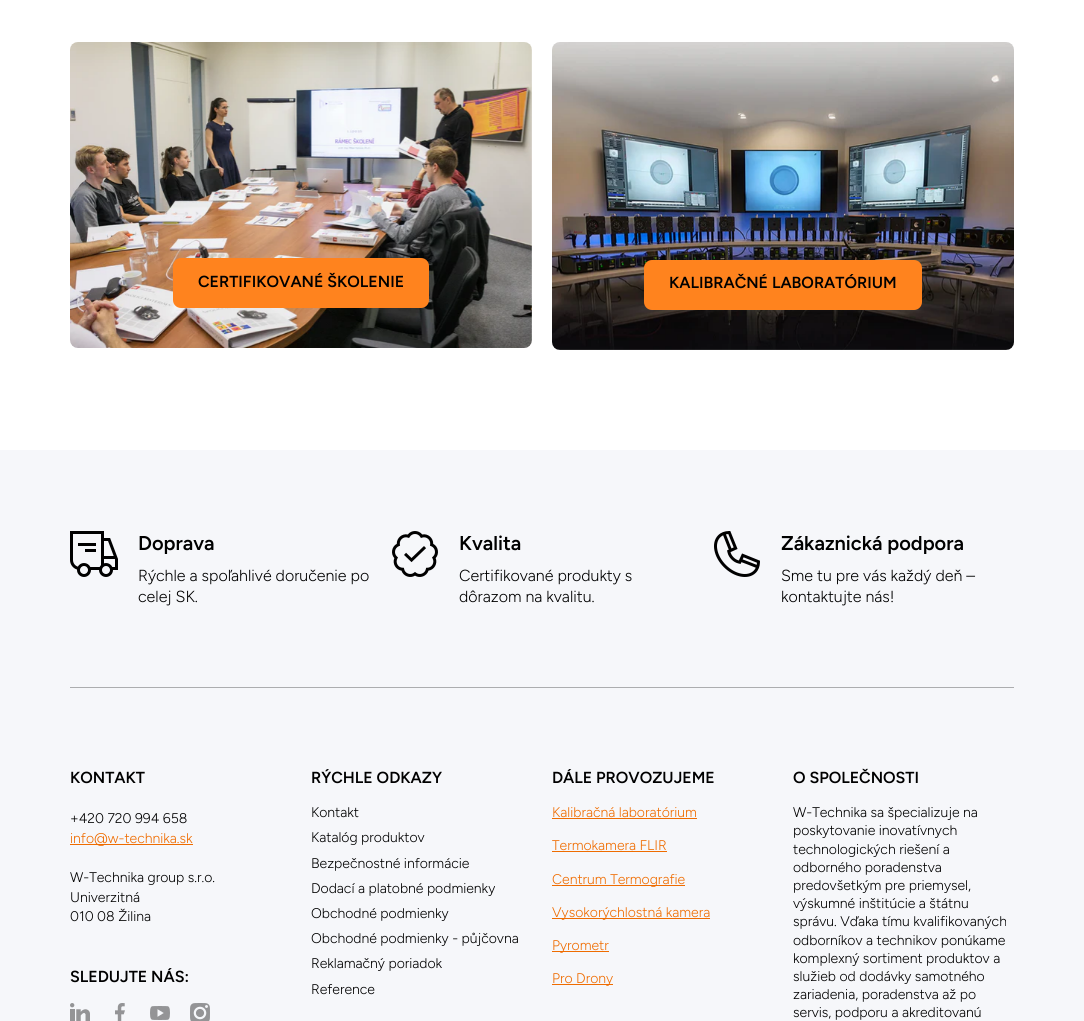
import math
import cairo



def rounded_rect(context, x, y, w, h, r):
    context.new_sub_path()
    for i, (u, v) in enumerate([(x + w - r, y + h - r), (x + r, y + h - r), (x + r, y + r), (x + w - r, y + r)]):
        context.arc(u, v, r, i * math.pi / 2, (i + 1) * math.pi / 2)
    context.close_path()


def draw_image(context, path, x, y, w, h):
    context.save()
    context.set_source_surface(cairo.ImageSurface.create_from_png(path), x, y)
    context.rectangle(x, y, w, h)
    context.fill()
    context.restore()


def draw(context):
    context.set_source_rgb(1, 1, 1)
    context.paint()
    draw_image(context, "images/1.png", 70, 42, 462, 306)
    context.set_source_rgb(1, 131 / 255, 30 / 255)
    rounded_rect(context, 173, 258, 256, 50, 8)
    context.fill()
    draw_image(context, "images/2.png", 552, 42, 462, 308)
    rounded_rect(context, 644, 260, 278, 50, 8)
    context.fill()
    context.set_source_rgb(246 / 255, 247 / 255, 250 / 255)
    context.rectangle(0, 450, 1084, 571)
    context.fill()
    draw_image(context, "images/3.png", 70, 531, 48, 46)
    draw_image(context, "images/4.png", 392, 531, 46, 46)
    draw_image(context, "images/5.png", 714, 531, 46, 46)
    context.set_source_rgb(172 / 255, 173 / 255, 175 / 255)
    context.rectangle(70, 687, 944, 1)
    context.fill()
    context.set_source_rgb(239 / 255, 108 / 255, 0)
    context.rectangle(70, 844, 123, 1)
    context.fill()
    draw_image(context, "images/6.png", 70, 1003, 20, 18)
    draw_image(context, "images/7.png", 115, 1003, 10, 18)
    draw_image(context, "images/8.png", 150, 1006, 20, 14)
    draw_image(context, "images/9.png", 190, 1003, 20, 18)
    context.rectangle(552, 818, 145, 1)
    context.fill()
    context.rectangle(552, 851, 115, 1)
    context.fill()
    context.rectangle(552, 885, 133, 1)
    context.fill()
    context.rectangle(552, 918, 158, 1)
    context.fill()
    context.rectangle(552, 951, 57, 1)
    context.fill()
    context.rectangle(552, 984, 61, 1)
    context.fill()
    context.select_font_face("Figtree SemiBold")
    context.set_font_size(16)
    context.set_source_rgb(0, 0, 0)
    context.move_to(198, 287)
    context.show_text("CERTIFIKOVANÉ ŠKOLENIE")
    context.move_to(669, 288)
    context.show_text("KALIBRAČNÉ LABORATÓRIUM")
    context.set_font_size(20)
    context.move_to(138, 550)
    context.show_text("Doprava")
    context.select_font_face("Figtree Light")
    context.set_font_size(16)
    context.move_to(138, 581)
    context.show_text("Rýchle a spoľahlivé doručenie po")
    context.move_to(138, 602)
    context.show_text("celej SK.")
    context.select_font_face("Figtree SemiBold")
    context.set_font_size(20)
    context.move_to(459, 550)
    context.show_text("Kvalita")
    context.select_font_face("Figtree Light")
    context.set_font_size(16)
    context.move_to(459, 581)
    context.show_text("Certifikované produkty s")
    context.move_to(459, 602)
    context.show_text("dôrazom na kvalitu.")
    context.select_font_face("Figtree SemiBold")
    context.set_font_size(20)
    context.move_to(781, 550)
    context.show_text("Zákaznická podpora")
    context.select_font_face("Figtree Light")
    context.set_font_size(16)
    context.move_to(781, 581)
    context.show_text("Sme tu pre vás každý deň –")
    context.move_to(781, 602)
    context.show_text("kontaktujte nás!")
    context.select_font_face("Figtree SemiBold")
    context.move_to(70, 783)
    context.show_text("KONTAKT")
    context.select_font_face("Figtree Light")
    context.set_font_size(14)
    context.move_to(70, 823)
    context.show_text("+420 720 994 658")
    context.set_source_rgb(239 / 255, 108 / 255, 0)
    context.move_to(70, 843)
    context.show_text("info@w-technika.sk")
    context.set_source_rgb(0, 0, 0)
    context.move_to(70, 882)
    context.show_text("W-Technika group s.r.o.")
    context.move_to(70, 902)
    context.show_text("Univerzitná")
    context.move_to(70, 921)
    context.show_text("010 08 Žilina")
    context.select_font_face("Figtree SemiBold")
    context.set_font_size(16)
    context.move_to(70, 982)
    context.show_text("SLEDUJTE NÁS:")
    context.move_to(311, 783)
    context.show_text("RÝCHLE ODKAZY")
    context.select_font_face("Figtree Light")
    context.set_font_size(14)
    context.move_to(311, 817)
    context.show_text("Kontakt")
    context.move_to(311, 842)
    context.show_text("Katalóg produktov")
    context.move_to(311, 868)
    context.show_text("Bezpečnostné informácie")
    context.move_to(311, 893)
    context.show_text("Dodací a platobné podmienky")
    context.move_to(311, 918)
    context.show_text("Obchodné podmienky")
    context.move_to(311, 943)
    context.show_text("Obchodné podmienky - půjčovna")
    context.move_to(311, 968)
    context.show_text("Reklamačný poriadok")
    context.move_to(311, 994)
    context.show_text("Reference")
    context.select_font_face("Figtree SemiBold")
    context.set_font_size(16)
    context.move_to(552, 783)
    context.show_text("DÁLE PROVOZUJEME")
    context.select_font_face("Figtree Light")
    context.set_font_size(14)
    context.set_source_rgb(239 / 255, 108 / 255, 0)
    context.move_to(552, 817)
    context.show_text("Kalibračná laboratórium")
    context.move_to(552, 850)
    context.show_text("Termokamera FLIR")
    context.move_to(552, 884)
    context.show_text("Centrum Termografie")
    context.move_to(552, 917)
    context.show_text("Vysokorýchlostná kamera")
    context.move_to(552, 950)
    context.show_text("Pyrometr")
    context.move_to(552, 983)
    context.show_text("Pro Drony")
    context.select_font_face("Figtree SemiBold")
    context.set_font_size(16)
    context.set_source_rgb(0, 0, 0)
    context.move_to(793, 783)
    context.show_text("O SPOLEČNOSTI")
    context.select_font_face("Figtree Light")
    context.set_font_size(14)
    context.move_to(793, 817)
    context.show_text("W-Technika sa špecializuje na")
    context.move_to(793, 835)
    context.show_text("poskytovanie inovatívnych")
    context.move_to(793, 854)
    context.show_text("technologických riešení a")
    context.move_to(793, 872)
    context.show_text("odborného poradenstva")
    context.move_to(793, 890)
    context.show_text("predovšetkým pre priemysel,")
    context.move_to(793, 908)
    context.show_text("výskumné inštitúcie a štátnu")
    context.move_to(793, 926)
    context.show_text("správu. Vďaka tímu kvalifikovaných")
    context.move_to(793, 945)
    context.show_text("odborníkov a technikov ponúkame")
    context.move_to(793, 963)
    context.show_text("komplexný sortiment produktov a")
    context.move_to(793, 981)
    context.show_text("služieb od dodávky samotného")
    context.move_to(793, 999)
    context.show_text("zariadenia, poradenstva až po")
    context.move_to(793, 1017)
    context.show_text("servis, podporu a akreditovanú")


surface = cairo.ImageSurface(cairo.Format.RGB24, 1084, 1021)
context = cairo.Context(surface)
options = cairo.FontOptions()
options.set_hint_metrics(cairo.HintMetrics.OFF)
options.set_hint_style(cairo.HintStyle.NONE)
context.set_font_options(options)
context.set_miter_limit(4)
draw(context)
surface.write_to_png("out.png")
